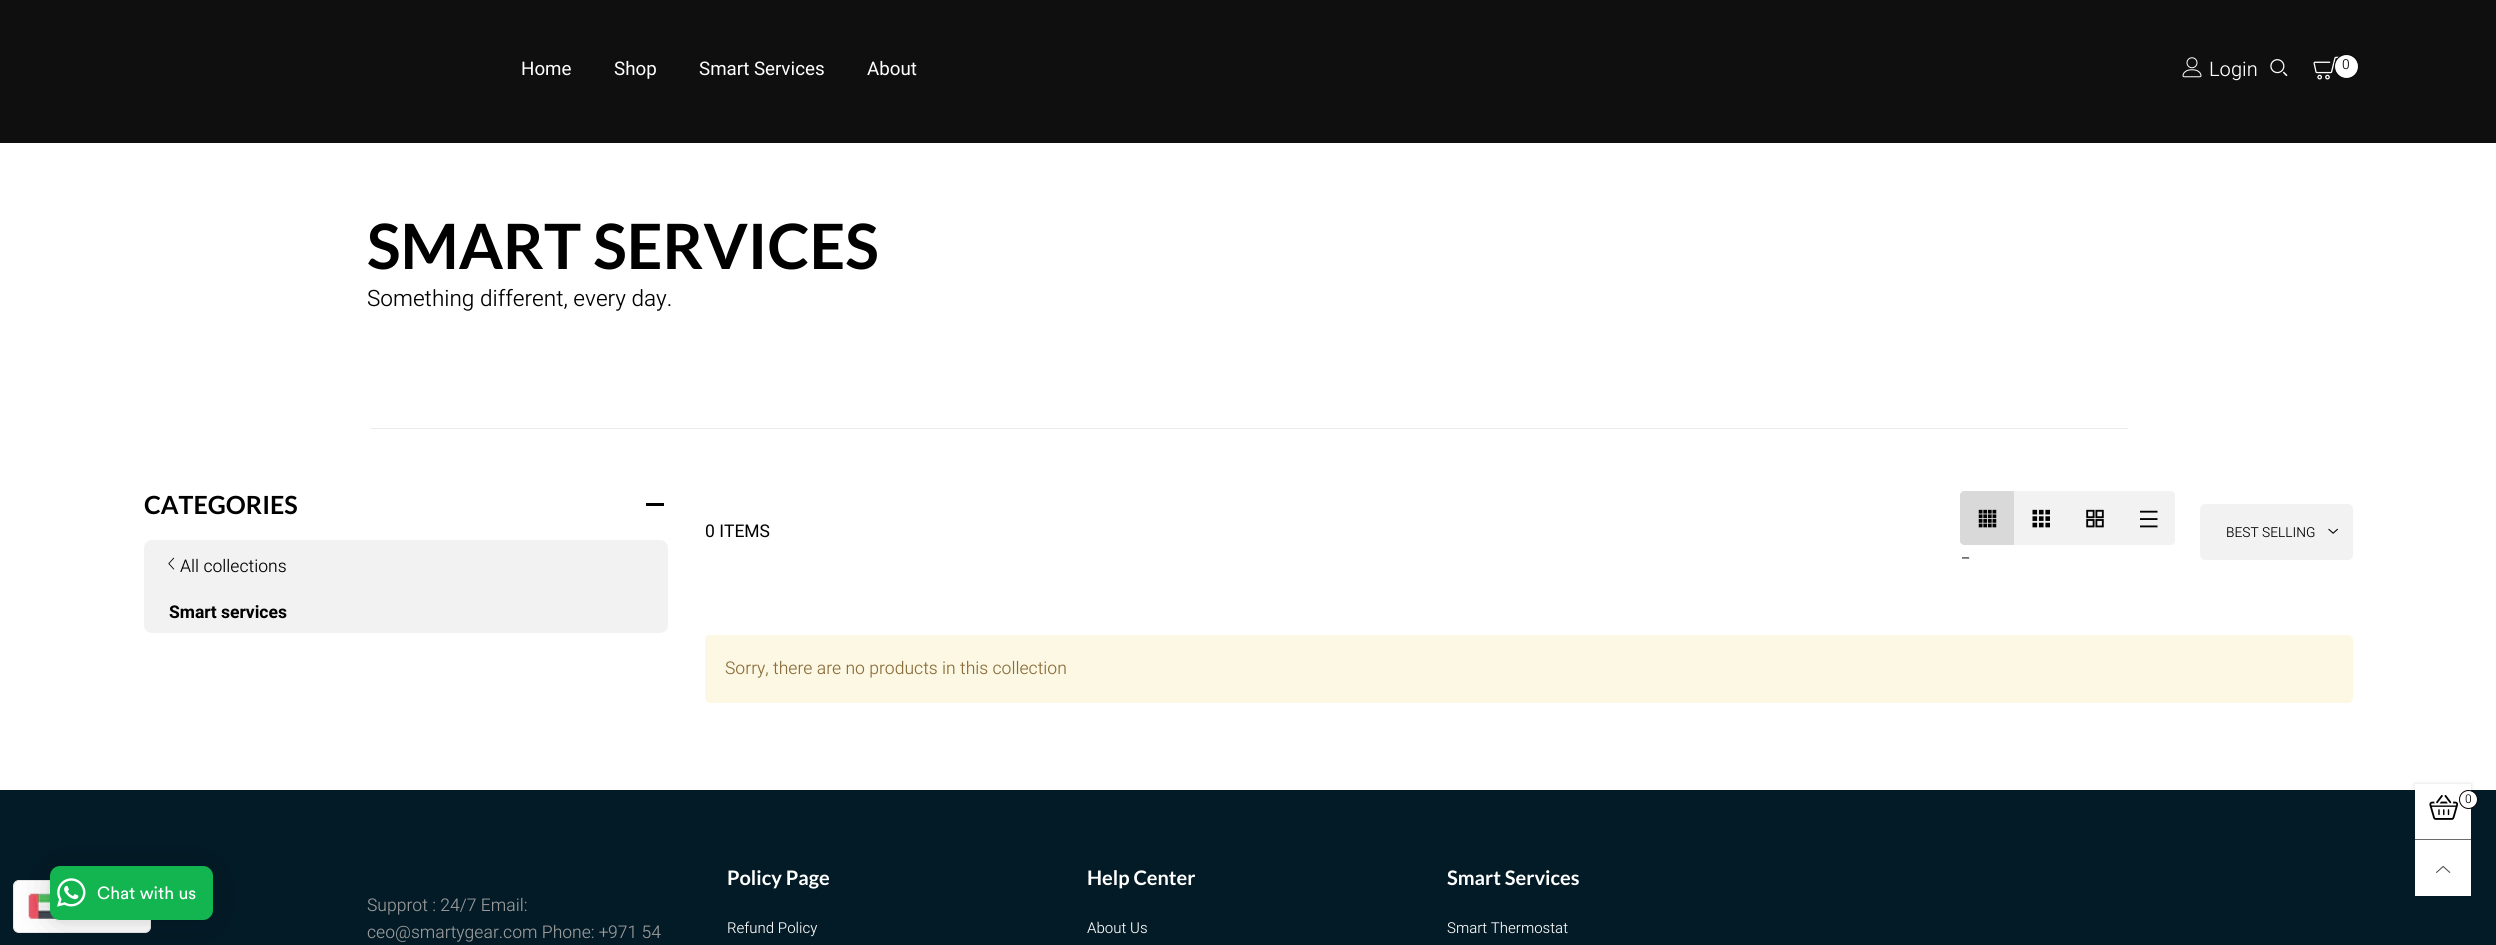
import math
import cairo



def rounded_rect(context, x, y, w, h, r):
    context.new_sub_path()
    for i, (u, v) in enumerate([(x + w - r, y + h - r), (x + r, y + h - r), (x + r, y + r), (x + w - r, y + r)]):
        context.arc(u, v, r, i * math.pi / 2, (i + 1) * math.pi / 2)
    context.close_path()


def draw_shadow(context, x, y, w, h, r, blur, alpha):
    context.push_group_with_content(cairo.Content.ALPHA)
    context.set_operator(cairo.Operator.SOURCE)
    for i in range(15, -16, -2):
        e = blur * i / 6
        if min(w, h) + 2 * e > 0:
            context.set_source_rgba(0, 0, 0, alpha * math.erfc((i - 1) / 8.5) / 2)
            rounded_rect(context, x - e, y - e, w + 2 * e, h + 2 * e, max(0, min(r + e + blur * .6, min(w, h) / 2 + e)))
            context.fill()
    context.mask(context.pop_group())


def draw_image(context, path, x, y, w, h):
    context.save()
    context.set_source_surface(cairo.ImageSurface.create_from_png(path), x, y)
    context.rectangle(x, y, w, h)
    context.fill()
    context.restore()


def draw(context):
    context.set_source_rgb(1, 1, 1)
    context.paint()
    context.set_source_rgb(15 / 255, 15 / 255, 16 / 255)
    context.rectangle(0, 0, 2496, 143)
    context.fill()
    draw_image(context, "images/1.png", 2182, 57, 20, 21)
    draw_image(context, "images/2.png", 2270, 59, 18, 18)
    draw_image(context, "images/3.png", 2313, 56, 26, 24)
    context.set_source_rgb(1, 1, 1)
    context.arc(2346.5, 66.5, 12, 0, 2 * math.pi)
    context.fill_preserve()
    context.set_source_rgb(0, 0, 0)
    context.set_line_width(1)
    context.stroke()
    context.set_source_rgb(235 / 255, 235 / 255, 235 / 255)
    context.rectangle(371, 428, 1757, 1)
    context.fill()
    context.set_source_rgb(0, 0, 0)
    context.rectangle(646, 503, 18, 3)
    context.fill()
    context.set_source_rgb(242 / 255, 242 / 255, 242 / 255)
    rounded_rect(context, 144, 540, 524, 93, 8)
    context.fill()
    draw_image(context, "images/4.png", 168, 557, 7, 13)
    rounded_rect(context, 2200, 504, 153, 56, 5)
    context.fill()
    draw_image(context, "images/5.png", 2328, 528, 10, 6)
    context.rectangle(2014, 491, 107, 54)
    context.fill()
    draw_image(context, "images/6.png", 2032, 509, 18, 19)
    context.new_path()
    context.move_to(2121, 491)
    context.line_to(2171, 491)
    context.curve_to(2173, 491, 2175, 493, 2175, 495)
    context.line_to(2175, 541)
    context.curve_to(2175, 543, 2173, 545, 2171, 545)
    context.line_to(2121, 545)
    context.close_path()
    context.fill()
    draw_image(context, "images/7.png", 2140, 510, 18, 18)
    draw_image(context, "images/8.png", 2086, 509, 18, 19)
    context.set_source_rgb(217 / 255, 217 / 255, 217 / 255)
    context.new_path()
    context.move_to(1964, 491)
    context.line_to(2014, 491)
    context.line_to(2014, 545)
    context.line_to(1964, 545)
    context.curve_to(1962, 545, 1960, 543, 1960, 541)
    context.line_to(1960, 495)
    context.curve_to(1960, 493, 1962, 491, 1964, 491)
    context.close_path()
    context.fill()
    draw_image(context, "images/9.png", 1978, 509, 19, 19)
    context.set_source_rgb(252 / 255, 248 / 255, 227 / 255)
    rounded_rect(context, 705, 635, 1648, 68, 5)
    context.fill()
    context.set_source_rgb(3 / 255, 27 / 255, 39 / 255)
    context.rectangle(0, 790, 2496, 155)
    context.fill()
    context.set_source_rgb(0, 0, 0)
    draw_shadow(context, 2415, 784, 56, 112, 0, 2, 0.15)
    context.set_source_rgb(1, 1, 1)
    context.rectangle(2415, 784, 56, 112)
    context.fill()
    context.set_source_rgb(108 / 255, 108 / 255, 108 / 255)
    context.rectangle(2415, 839, 56, 1)
    context.fill()
    draw_image(context, "images/10.png", 2429, 795, 30, 25)
    context.set_source_rgb(1, 1, 1)
    context.arc(2468.5, 799.5, 9, 0, 2 * math.pi)
    context.fill_preserve()
    context.set_source_rgb(0, 0, 0)
    context.stroke()
    draw_image(context, "images/11.png", 2436, 865, 15, 8)
    context.set_source_rgb(1, 1, 1)
    rounded_rect(context, 13.5, 880.5, 137, 52, 5.5)
    context.fill_preserve()
    context.set_source_rgb(232 / 255, 232 / 255, 232 / 255)
    context.stroke()
    draw_image(context, "images/12.png", 28, 893, 28, 26)
    context.set_source_rgb(0, 0, 0)
    draw_shadow(context, 50, 869, 163, 54, 10, 20, 0.16)
    draw_shadow(context, 50, 868, 163, 53, 10, 4, 0.06)
    context.set_source_rgb(19 / 255, 181 / 255, 81 / 255)
    rounded_rect(context, 50, 866, 163, 54, 10)
    context.fill()
    draw_image(context, "images/13.png", 57, 878, 29, 29)
    context.select_font_face("Heebo")
    context.set_font_size(18.75)
    context.set_source_rgb(1, 1, 1)
    context.move_to(521, 75)
    context.show_text("Home")
    context.move_to(614, 75)
    context.show_text("Shop")
    context.move_to(699, 75)
    context.show_text("Smart Services")
    context.move_to(867, 75)
    context.show_text("About")
    context.select_font_face("Heebo Light")
    context.set_font_size(20)
    context.move_to(2209, 76)
    context.show_text("Login")
    context.set_font_size(13.75)
    context.set_source_rgb(0, 0, 0)
    context.move_to(2342, 69)
    context.show_text("0")
    context.select_font_face("Lato", cairo.FontSlant.NORMAL, cairo.FontWeight.BOLD)
    context.set_font_size(62.5)
    context.move_to(367, 269)
    context.show_text("SMART SERVICES")
    context.select_font_face("Heebo Light")
    context.set_font_size(22.5)
    context.move_to(367, 306)
    context.show_text("Something different, every day.")
    context.select_font_face("Lato", cairo.FontSlant.NORMAL, cairo.FontWeight.BOLD)
    context.set_font_size(25)
    context.move_to(144, 514)
    context.show_text("CATEGORIES")
    context.select_font_face("Heebo Light")
    context.set_font_size(17.5)
    context.move_to(180, 572)
    context.show_text("All collections")
    context.select_font_face("Heebo", cairo.FontSlant.NORMAL, cairo.FontWeight.BOLD)
    context.move_to(169, 618)
    context.show_text("Smart services")
    context.select_font_face("Heebo")
    context.move_to(705, 537)
    context.show_text("0 ITEMS")
    context.select_font_face("Heebo Light")
    context.set_font_size(13.75)
    context.move_to(2226, 537)
    context.show_text("BEST SELLING")
    context.set_font_size(17.5)
    context.move_to(1961, 564)
    context.show_text("−")
    context.set_source_rgb(138 / 255, 109 / 255, 59 / 255)
    context.move_to(725, 674)
    context.show_text("Sorry, there are no products in this collection")
    context.set_font_size(12)
    context.set_source_rgb(0, 0, 0)
    context.move_to(2465, 803)
    context.show_text("0")
    context.set_font_size(17.5)
    context.set_source_rgb(153 / 255, 153 / 255, 153 / 255)
    context.move_to(367, 911)
    context.show_text("Supprot : 24/7 Email:")
    context.move_to(367, 938)
    context.show_text("ceo@smartygear.com Phone: +971 54")
    context.select_font_face("Lato", cairo.FontSlant.NORMAL, cairo.FontWeight.BOLD)
    context.set_font_size(20)
    context.set_source_rgb(1, 1, 1)
    context.move_to(727, 885)
    context.show_text("Policy Page")
    context.select_font_face("Heebo Light")
    context.set_font_size(15)
    context.set_source_rgb(249 / 255, 249 / 255, 249 / 255)
    context.move_to(727, 933)
    context.show_text("Refund Policy")
    context.select_font_face("Lato", cairo.FontSlant.NORMAL, cairo.FontWeight.BOLD)
    context.set_font_size(20)
    context.set_source_rgb(1, 1, 1)
    context.move_to(1087, 885)
    context.show_text("Help Center")
    context.select_font_face("Heebo Light")
    context.set_font_size(15)
    context.set_source_rgb(249 / 255, 249 / 255, 249 / 255)
    context.move_to(1087, 933)
    context.show_text("About Us")
    context.select_font_face("Lato", cairo.FontSlant.NORMAL, cairo.FontWeight.BOLD)
    context.set_font_size(20)
    context.set_source_rgb(1, 1, 1)
    context.move_to(1447, 885)
    context.show_text("Smart Services")
    context.select_font_face("Heebo Light")
    context.set_font_size(15)
    context.set_source_rgb(249 / 255, 249 / 255, 249 / 255)
    context.move_to(1447, 933)
    context.show_text("Smart Thermostat")
    context.select_font_face("Circular")
    context.set_font_size(17.5)
    context.set_source_rgb(1, 1, 1)
    context.move_to(97, 899)
    context.show_text("Chat with us")


surface = cairo.ImageSurface(cairo.Format.RGB24, 2496, 945)
context = cairo.Context(surface)
options = cairo.FontOptions()
options.set_hint_metrics(cairo.HintMetrics.OFF)
options.set_hint_style(cairo.HintStyle.NONE)
context.set_font_options(options)
context.set_miter_limit(4)
draw(context)
surface.write_to_png("out.png")
